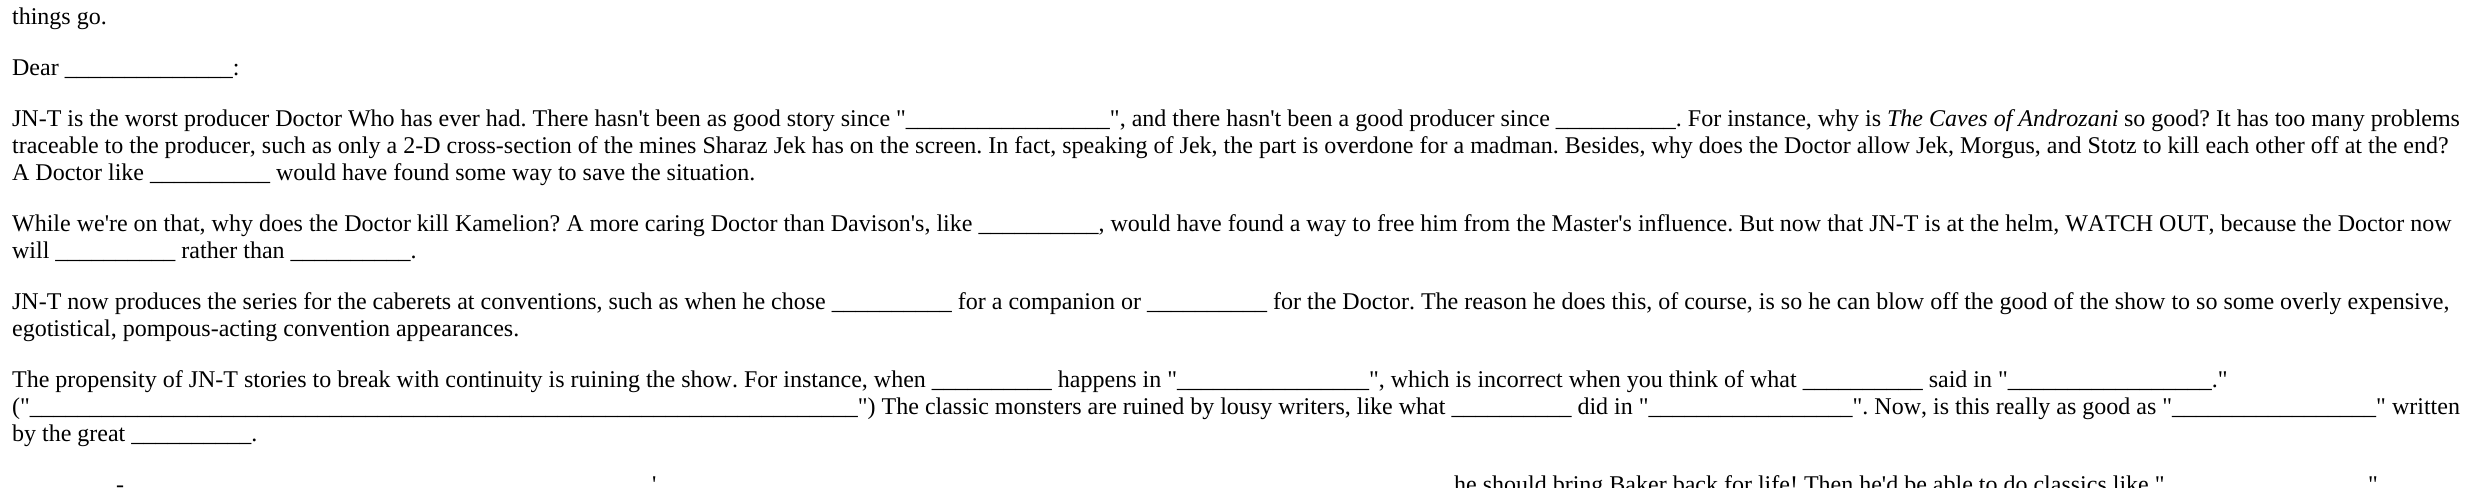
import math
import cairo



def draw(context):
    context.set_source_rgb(1, 1, 1)
    context.paint()
    context.select_font_face("Liberation Serif")
    context.set_font_size(24)
    context.set_source_rgb(0, 0, 0)
    context.move_to(12, 24)
    context.show_text("things go.")
    context.move_to(12, 75)
    context.show_text("Dear ______________:")
    context.move_to(12, 126)
    context.show_text("JN-T is the worst producer Doctor Who has ever had. There hasn't been as good story since \"_________________\", and there hasn't been a good producer since __________. For instance, why is")
    context.select_font_face("Liberation Serif", cairo.FontSlant.ITALIC)
    context.move_to(1887, 126)
    context.show_text("The Caves of Androzani")
    context.select_font_face("Liberation Serif")
    context.move_to(2124, 126)
    context.show_text("so good? It has too many problems")
    context.move_to(12, 153)
    context.show_text("traceable to the producer, such as only a 2-D cross-section of the mines Sharaz Jek has on the screen. In fact, speaking of Jek, the part is overdone for a madman. Besides, why does the Doctor allow Jek, Morgus, and Stotz to kill each other off at the end?")
    context.move_to(12, 180)
    context.show_text("A Doctor like __________ would have found some way to save the situation.")
    context.move_to(12, 231)
    context.show_text("While we're on that, why does the Doctor kill Kamelion? A more caring Doctor than Davison's, like __________, would have found a way to free him from the Master's influence. But now that JN-T is at the helm, WATCH OUT, because the Doctor now")
    context.move_to(12, 258)
    context.show_text("will __________ rather than __________.")
    context.move_to(12, 309)
    context.show_text("JN-T now produces the series for the caberets at conventions, such as when he chose __________ for a companion or __________ for the Doctor. The reason he does this, of course, is so he can blow off the good of the show to so some overly expensive,")
    context.move_to(12, 336)
    context.show_text("egotistical, pompous-acting convention appearances.")
    context.move_to(12, 387)
    context.show_text("The propensity of JN-T stories to break with continuity is ruining the show. For instance, when __________ happens in \"________________\", which is incorrect when you think of what __________ said in \"_________________.\"")
    context.move_to(12, 414)
    context.show_text("(\"_____________________________________________________________________\") The classic monsters are ruined by lousy writers, like what __________ did in \"_________________\". Now, is this really as good as \"_________________\" written")
    context.move_to(12, 441)
    context.show_text("by the great __________.")
    context.move_to(652, 492)
    context.show_text("'")
    context.move_to(1454, 492)
    context.show_text("he should bring Baker back for life! Then he'd be able to do classics like \"")
    context.move_to(2368, 492)
    context.show_text("\"")
    context.move_to(116, 492)
    context.show_text("-")


surface = cairo.ImageSurface(cairo.Format.RGB24, 2479, 488)
context = cairo.Context(surface)
options = cairo.FontOptions()
options.set_hint_metrics(cairo.HintMetrics.OFF)
options.set_hint_style(cairo.HintStyle.NONE)
context.set_font_options(options)
context.set_miter_limit(4)
draw(context)
surface.write_to_png("out.png")
